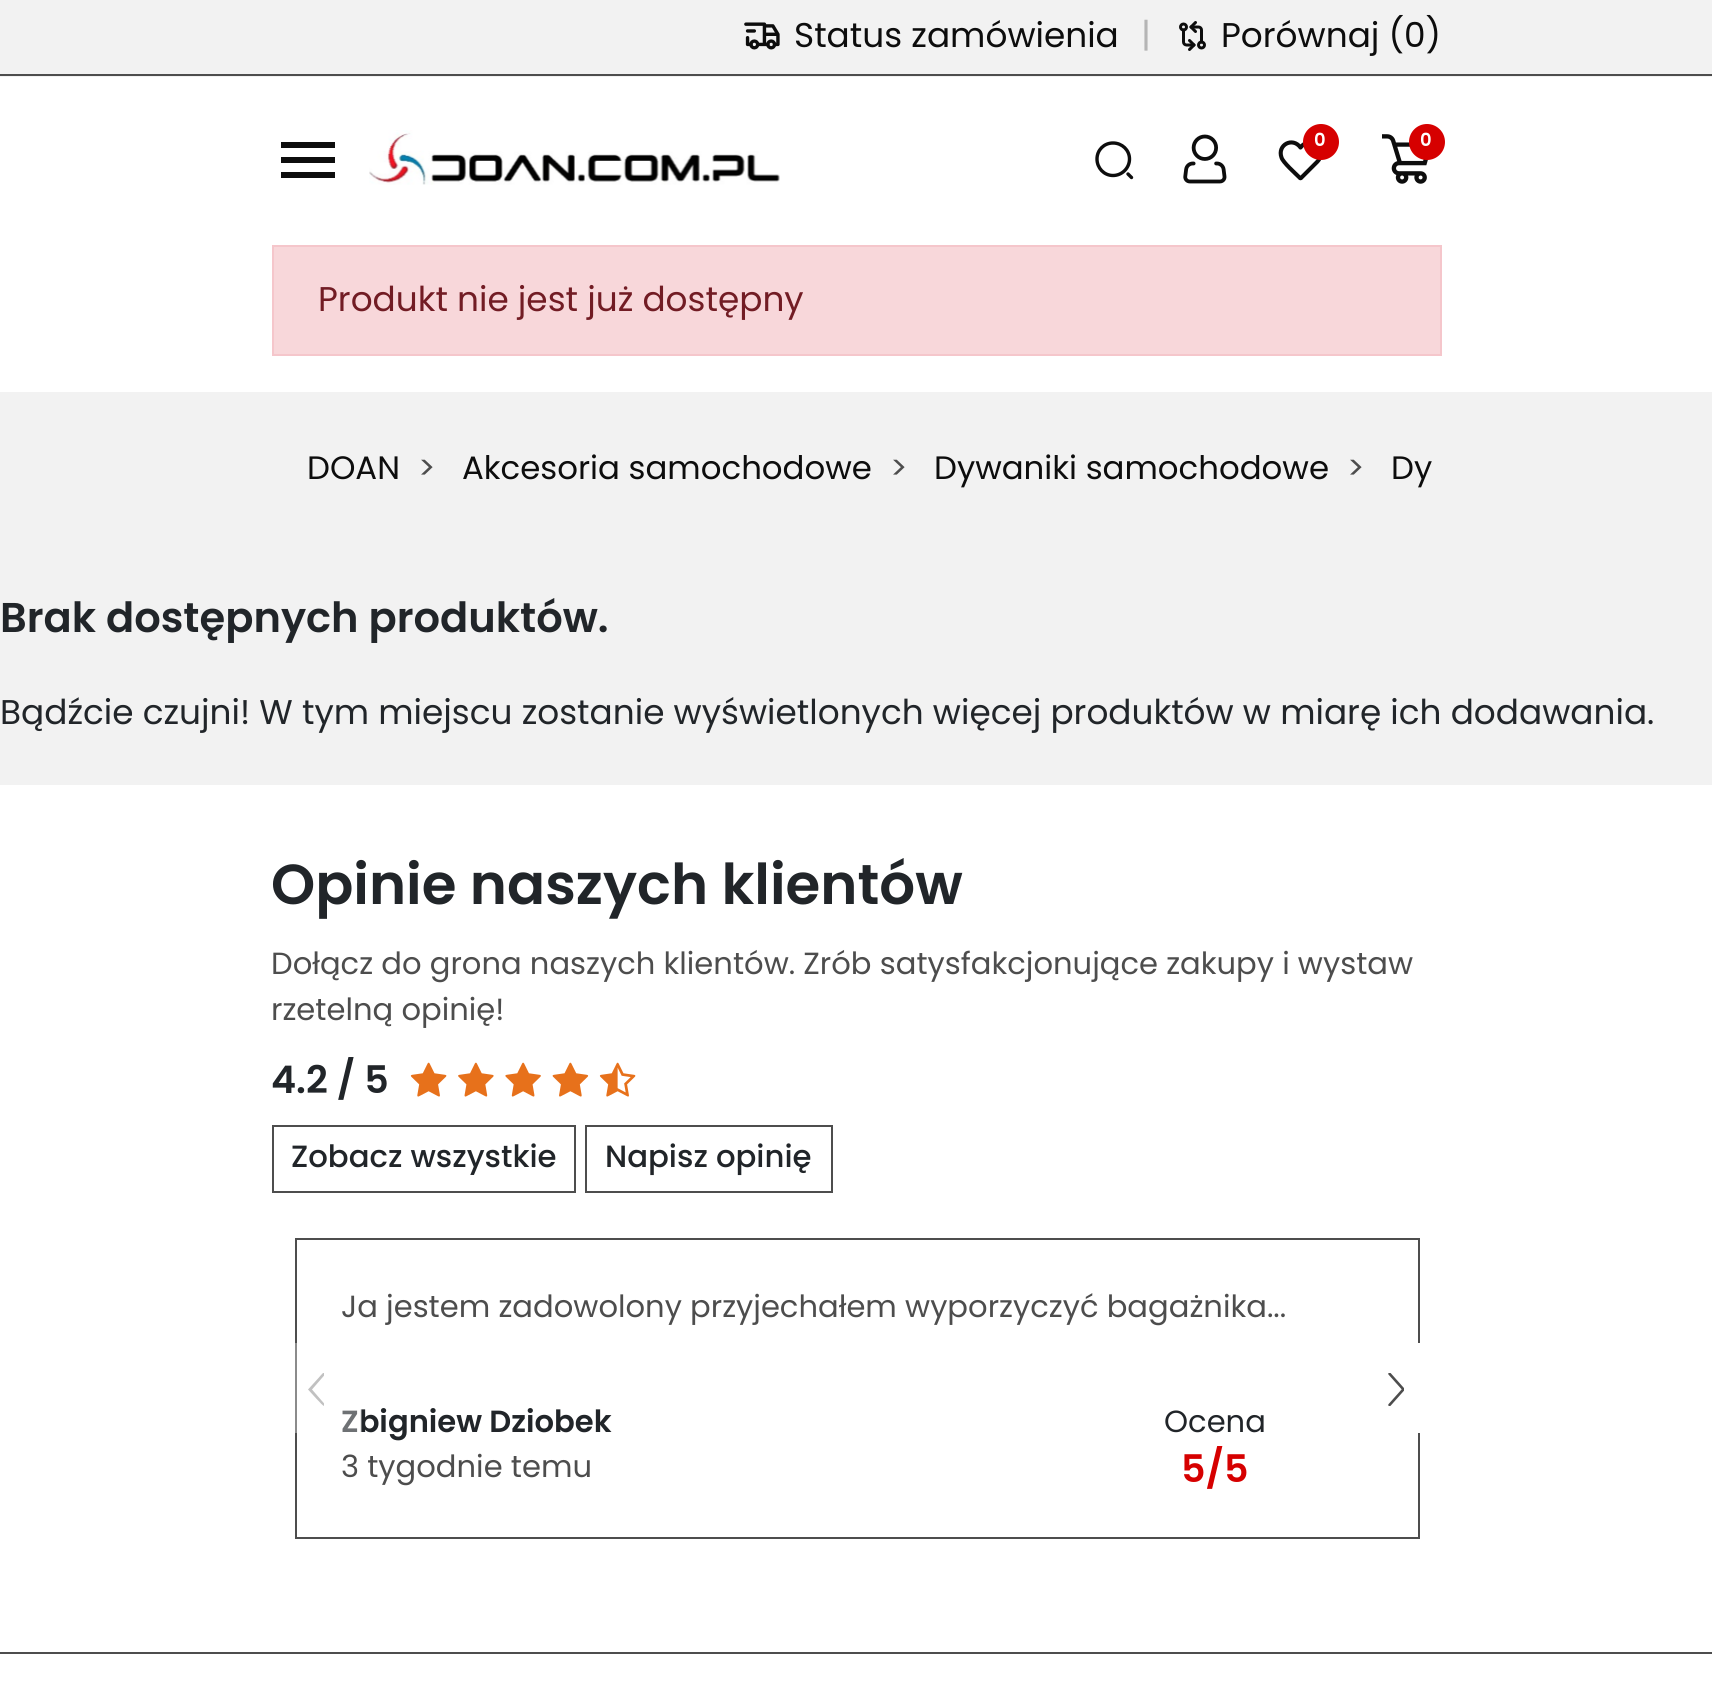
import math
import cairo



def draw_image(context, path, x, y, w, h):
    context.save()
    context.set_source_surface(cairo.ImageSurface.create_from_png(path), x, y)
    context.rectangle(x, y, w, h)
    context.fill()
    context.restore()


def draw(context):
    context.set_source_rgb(1, 1, 1)
    context.paint()
    context.set_source_rgb(242 / 255, 242 / 255, 242 / 255)
    context.rectangle(0, 0, 1712, 77)
    context.fill()
    context.set_source_rgb(77 / 255, 77 / 255, 77 / 255)
    context.rectangle(0, 74, 1712, 2)
    context.fill()
    draw_image(context, "images/1.png", 744, 22, 36, 28)
    draw_image(context, "images/2.png", 1179, 21, 27, 30)
    context.set_source_rgb(13 / 255, 13 / 255, 13 / 255)
    context.new_path()
    context.move_to(281, 142)
    context.line_to(335, 142)
    context.line_to(335, 148)
    context.line_to(281, 148)
    context.close_path()
    context.move_to(281, 163)
    context.line_to(281, 157)
    context.line_to(335, 157)
    context.line_to(335, 163)
    context.close_path()
    context.move_to(281, 178)
    context.line_to(281, 172)
    context.line_to(335, 172)
    context.line_to(335, 178)
    context.close_path()
    context.fill()
    draw_image(context, "images/3.png", 369, 130, 411, 55)
    context.new_path()
    context.move_to(1131.5, 177.5)
    context.line_to(1128, 174)
    context.move_to(1129.5, 159)
    context.curve_to(1129.5, 168, 1122, 175.5, 1113, 175.5)
    context.curve_to(1104, 175.5, 1097, 168, 1097, 159)
    context.curve_to(1097, 150, 1104, 143, 1113, 143)
    context.curve_to(1122, 143, 1129.5, 150, 1129.5, 159)
    context.close_path()
    context.set_line_width(3.4)
    context.set_line_cap(cairo.LineCap.ROUND)
    context.set_line_join(cairo.LineJoin.ROUND)
    context.stroke()
    draw_image(context, "images/4.png", 1183, 134, 44, 50)
    context.new_path()
    context.move_to(1299.5, 177.5)
    context.curve_to(1295.5, 173.5, 1283, 162.5, 1281.5, 157.5)
    context.curve_to(1277, 145, 1292.5, 136.5, 1300.5, 147.5)
    context.line_to(1301, 147)
    context.curve_to(1305, 141.5, 1312, 141, 1317, 145)
    context.curve_to(1321.5, 149.5, 1322, 157, 1317.5, 161.5)
    context.line_to(1301.5, 177.5)
    context.curve_to(1301, 178.5, 1300, 178.5, 1299.5, 177.5)
    context.close_path()
    context.set_line_width(4.1)
    context.stroke()
    context.set_source_rgb(214 / 255, 0, 0)
    context.arc(1321, 142, 18, 0, 2 * math.pi)
    context.fill()
    draw_image(context, "images/5.png", 1382, 134, 47, 50)
    context.arc(1427, 142, 18, 0, 2 * math.pi)
    context.fill()
    context.set_source_rgb(248 / 255, 215 / 255, 218 / 255)
    context.rectangle(273, 246, 1168, 109)
    context.fill_preserve()
    context.set_source_rgb(245 / 255, 198 / 255, 203 / 255)
    context.set_line_width(2)
    context.set_line_cap(cairo.LineCap.BUTT)
    context.set_line_join(cairo.LineJoin.MITER)
    context.stroke()
    context.set_source_rgb(242 / 255, 242 / 255, 242 / 255)
    context.rectangle(0, 392, 1712, 393)
    context.fill()
    draw_image(context, "images/6.png", 410, 1062, 37, 35)
    draw_image(context, "images/7.png", 458, 1062, 36, 35)
    draw_image(context, "images/8.png", 505, 1062, 36, 35)
    draw_image(context, "images/9.png", 552, 1062, 37, 35)
    draw_image(context, "images/10.png", 599, 1062, 37, 35)
    context.rectangle(273, 1126, 302, 66)
    context.set_source_rgb(77 / 255, 77 / 255, 77 / 255)
    context.stroke()
    context.rectangle(586, 1126, 246, 66)
    context.stroke()
    context.rectangle(296, 1239, 1123, 299)
    context.stroke()
    context.set_source_rgb(1, 1, 1)
    context.rectangle(1418, 1343, 2, 90)
    context.fill()
    draw_image(context, "images/11.png", 1388, 1373, 16, 33)
    context.set_source_rgb(77 / 255, 77 / 255, 77 / 255)
    context.rectangle(0, 1652, 1712, 2)
    context.fill()
    context.select_font_face("Poppins")
    context.set_font_size(34.3)
    context.set_source_rgb(13 / 255, 13 / 255, 13 / 255)
    context.move_to(794, 47)
    context.show_text("Status zamówienia")
    context.set_source_rgb(181 / 255, 181 / 255, 181 / 255)
    context.move_to(1141, 47)
    context.show_text("|")
    context.set_source_rgb(13 / 255, 13 / 255, 13 / 255)
    context.move_to(1221, 47)
    context.show_text("Porównaj (0)")
    context.select_font_face("Poppins SemiBold")
    context.set_font_size(18)
    context.set_source_rgb(1, 1, 1)
    context.move_to(1314, 146)
    context.show_text("0")
    context.move_to(1420, 146)
    context.show_text("0")
    context.select_font_face("Poppins")
    context.set_font_size(34.3)
    context.set_source_rgb(114 / 255, 28 / 255, 36 / 255)
    context.move_to(318, 311)
    context.show_text("Produkt nie jest już dostępny")
    context.set_font_size(32.4)
    context.set_source_rgb(13 / 255, 13 / 255, 13 / 255)
    context.move_to(307, 479)
    context.show_text("DOAN")
    context.set_source_rgb(77 / 255, 77 / 255, 77 / 255)
    context.move_to(418, 479)
    context.show_text(">")
    context.set_source_rgb(13 / 255, 13 / 255, 13 / 255)
    context.move_to(462, 479)
    context.show_text("Akcesoria samochodowe")
    context.set_source_rgb(77 / 255, 77 / 255, 77 / 255)
    context.move_to(890, 479)
    context.show_text(">")
    context.set_source_rgb(13 / 255, 13 / 255, 13 / 255)
    context.move_to(934, 479)
    context.show_text("Dywaniki samochodowe")
    context.set_source_rgb(77 / 255, 77 / 255, 77 / 255)
    context.move_to(1347, 479)
    context.show_text(">")
    context.set_source_rgb(13 / 255, 13 / 255, 13 / 255)
    context.move_to(1391, 479)
    context.show_text("Dy")
    context.select_font_face("Poppins SemiBold")
    context.set_font_size(41.6)
    context.set_source_rgb(33 / 255, 37 / 255, 41 / 255)
    context.move_to(0, 632)
    context.show_text("Brak dostępnych produktów.")
    context.select_font_face("Poppins")
    context.set_font_size(34.3)
    context.move_to(0, 724)
    context.show_text("Bądźcie czujni! W tym miejscu zostanie wyświetlonych więcej produktów w miarę ich dodawania.")
    context.select_font_face("Poppins SemiBold")
    context.set_font_size(56.25)
    context.move_to(271, 904)
    context.show_text("Opinie naszych klientów")
    context.select_font_face("Poppins")
    context.set_font_size(30.6)
    context.set_source_rgb(77 / 255, 77 / 255, 77 / 255)
    context.move_to(271, 974)
    context.show_text("Dołącz do grona naszych klientów. Zrób satysfakcjonujące zakupy i wystaw")
    context.move_to(271, 1020)
    context.show_text("rzetelną opinię!")
    context.select_font_face("Poppins SemiBold")
    context.set_font_size(38)
    context.set_source_rgb(33 / 255, 37 / 255, 41 / 255)
    context.move_to(271, 1093)
    context.show_text("4.2 / 5")
    context.select_font_face("Poppins Medium")
    context.set_font_size(30.75)
    context.move_to(291, 1167)
    context.show_text("Zobacz wszystkie")
    context.move_to(605, 1167)
    context.show_text("Napisz opinię")
    context.select_font_face("Poppins")
    context.set_font_size(30.6)
    context.set_source_rgb(77 / 255, 77 / 255, 77 / 255)
    context.move_to(341, 1317)
    context.show_text("Ja jestem zadowolony przyjechałem wyporzyczyć bagażnika...")
    context.select_font_face("Poppins SemiBold")
    context.set_source_rgb(33 / 255, 37 / 255, 41 / 255)
    context.move_to(341, 1432)
    context.show_text("Zbigniew Dziobek")
    context.set_source_rgba(1, 1, 1, 0.35)
    context.rectangle(295, 1343, 67, 90)
    context.fill()
    context.save()
    context.rectangle(308, 1373, 16, 33)
    context.clip()
    context.set_source_rgb(193 / 255, 193 / 255, 193 / 255)
    context.new_path()
    context.move_to(324, 1406)
    context.curve_to(322.5, 1406, 310, 1391.5, 308, 1389.5)
    context.line_to(318, 1378.5)
    context.curve_to(322, 1374, 324.5, 1370.5, 325, 1373.5)
    context.line_to(325, 1374.5)
    context.line_to(312, 1389.5)
    context.line_to(325, 1404.5)
    context.line_to(325, 1405.5)
    context.close_path()
    context.fill()
    context.restore()
    context.select_font_face("Poppins")
    context.set_source_rgb(77 / 255, 77 / 255, 77 / 255)
    context.move_to(341, 1477)
    context.show_text("3 tygodnie temu")
    context.set_source_rgb(33 / 255, 37 / 255, 41 / 255)
    context.move_to(1164, 1432)
    context.show_text("Ocena")
    context.select_font_face("Poppins SemiBold")
    context.set_font_size(38)
    context.set_source_rgb(214 / 255, 0, 0)
    context.move_to(1181, 1482)
    context.show_text("5/5")


surface = cairo.ImageSurface(cairo.Format.RGB24, 1712, 1708)
context = cairo.Context(surface)
options = cairo.FontOptions()
options.set_hint_metrics(cairo.HintMetrics.OFF)
options.set_hint_style(cairo.HintStyle.NONE)
context.set_font_options(options)
context.set_miter_limit(4)
draw(context)
surface.write_to_png("out.png")
